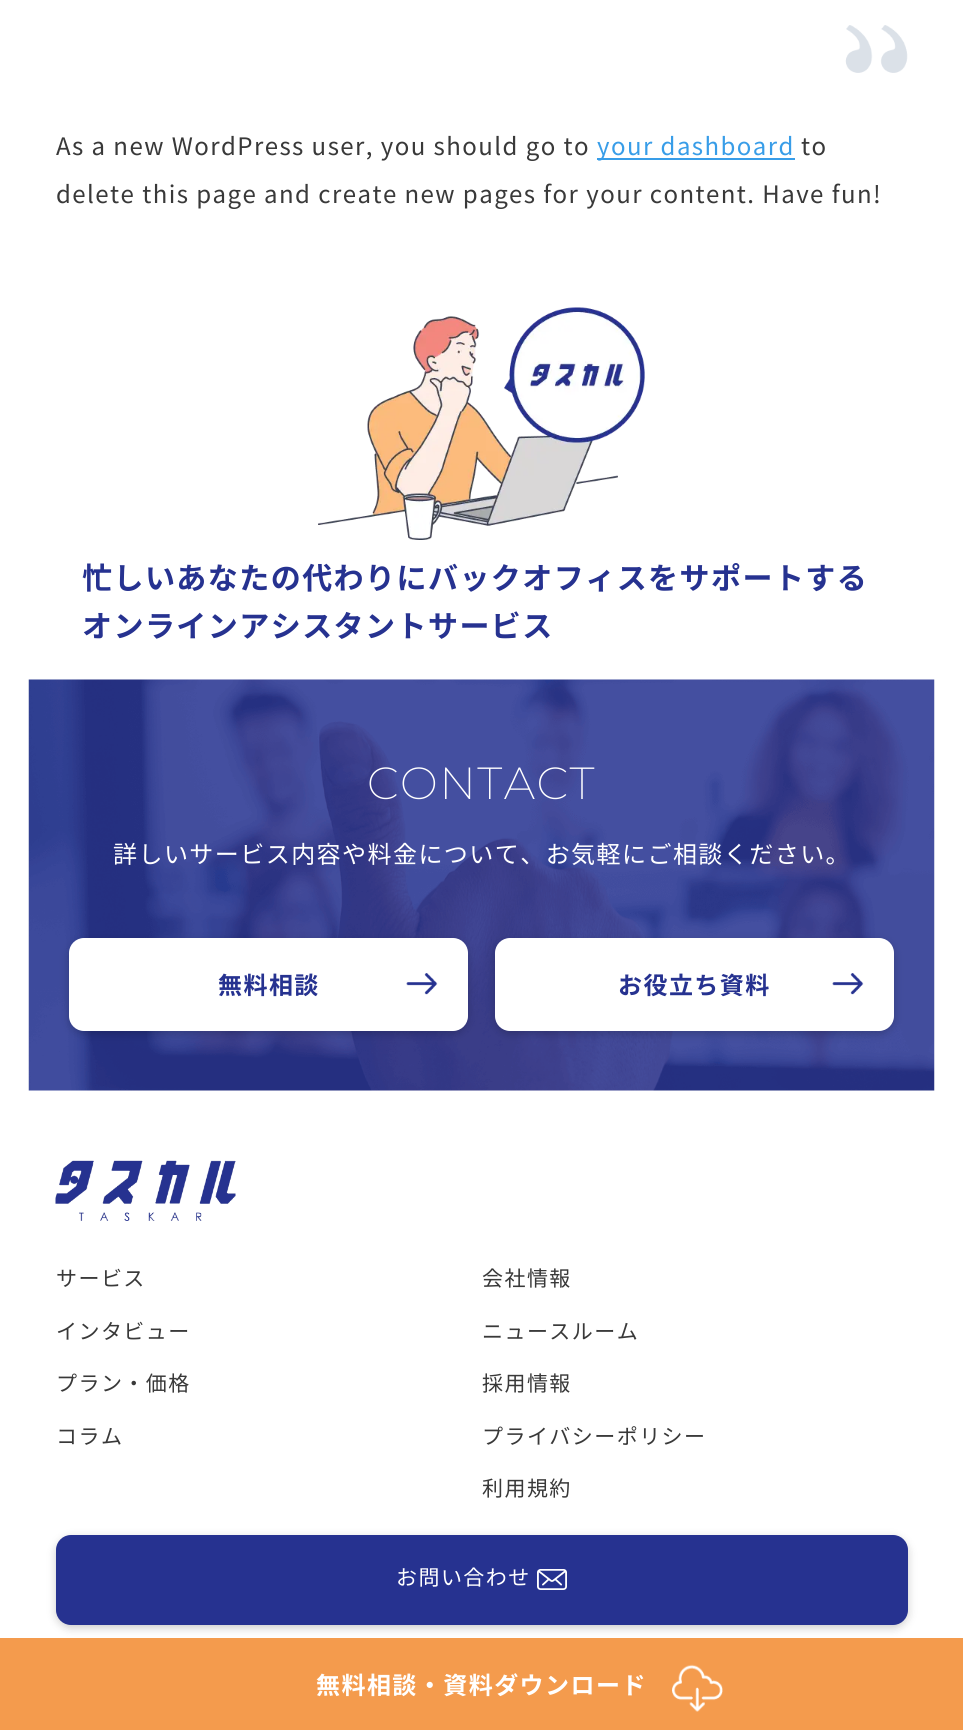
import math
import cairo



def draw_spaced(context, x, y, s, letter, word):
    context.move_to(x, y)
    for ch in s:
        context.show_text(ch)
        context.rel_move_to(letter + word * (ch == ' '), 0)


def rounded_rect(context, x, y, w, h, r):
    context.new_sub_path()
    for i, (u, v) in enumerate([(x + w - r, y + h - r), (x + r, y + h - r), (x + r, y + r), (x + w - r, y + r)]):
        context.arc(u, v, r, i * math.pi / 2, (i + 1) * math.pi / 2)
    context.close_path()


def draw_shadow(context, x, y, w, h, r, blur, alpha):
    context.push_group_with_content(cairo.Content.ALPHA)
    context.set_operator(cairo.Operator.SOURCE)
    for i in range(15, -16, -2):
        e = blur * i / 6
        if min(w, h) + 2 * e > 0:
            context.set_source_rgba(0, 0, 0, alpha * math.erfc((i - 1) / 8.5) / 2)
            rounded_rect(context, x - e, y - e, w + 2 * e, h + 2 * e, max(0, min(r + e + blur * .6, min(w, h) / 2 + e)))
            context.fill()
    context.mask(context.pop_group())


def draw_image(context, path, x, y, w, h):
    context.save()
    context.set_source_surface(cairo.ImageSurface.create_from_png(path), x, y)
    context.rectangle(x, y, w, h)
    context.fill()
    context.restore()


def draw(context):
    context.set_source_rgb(1, 1, 1)
    context.paint()
    draw_image(context, "images/1.png", 845, 25, 63, 48)
    context.set_source_rgb(56 / 255, 157 / 255, 232 / 255)
    context.rectangle(597, 158, 198, 2)
    context.fill()
    draw_image(context, "images/2.png", 318, 307, 327, 233)
    draw_image(context, "images/3.png", 28, 679, 907, 412)
    context.set_source_rgb(0, 0, 0)
    draw_shadow(context, 69, 941, 399, 93, 15, 4.5, 0.2)
    context.set_source_rgb(1, 1, 1)
    rounded_rect(context, 69, 938, 399, 93, 15)
    context.fill()
    draw_image(context, "images/4.png", 406, 973, 32, 22)
    context.set_source_rgb(0, 0, 0)
    draw_shadow(context, 495, 941, 399, 93, 15, 4.5, 0.2)
    context.set_source_rgb(1, 1, 1)
    rounded_rect(context, 495, 938, 399, 93, 15)
    context.fill()
    draw_image(context, "images/4.png", 832, 973, 32, 22)
    draw_image(context, "images/5.png", 55, 1160, 181, 61)
    context.set_source_rgb(0, 0, 0)
    draw_shadow(context, 56, 1538, 852, 90, 15, 4.5, 0.2)
    context.set_source_rgb(38 / 255, 50 / 255, 144 / 255)
    rounded_rect(context, 56, 1535, 852, 90, 15)
    context.fill()
    draw_image(context, "images/6.png", 537, 1569, 30, 21)
    context.set_source_rgb(244 / 255, 155 / 255, 77 / 255)
    context.rectangle(0, 1638, 963, 92)
    context.fill()
    draw_image(context, "images/7.png", 672, 1664, 51, 48)
    context.select_font_face("Noto Sans JP")
    context.set_font_size(24)
    context.set_source_rgb(57 / 255, 57 / 255, 57 / 255)
    draw_spaced(context, 56, 155, "As a new WordPress user, you should go to", 1.45, 0)
    context.set_source_rgb(56 / 255, 157 / 255, 232 / 255)
    draw_spaced(context, 597, 155, "your dashboard", 1.45, 0)
    context.set_source_rgb(57 / 255, 57 / 255, 57 / 255)
    draw_spaced(context, 801, 155, "to", 1.45, 0)
    draw_spaced(context, 56, 203, "delete this page and create new pages for your content. Have fun!", 1.45, 0)
    context.select_font_face("Noto Sans JP", cairo.FontSlant.NORMAL, cairo.FontWeight.BOLD)
    context.set_font_size(30)
    context.set_source_rgb(38 / 255, 50 / 255, 144 / 255)
    draw_spaced(context, 82, 589, "忙しいあなたの代わりにバックオフィスをサポートする", 1.45, 0)
    draw_spaced(context, 82, 637, "オンラインアシスタントサービス", 1.45, 0)
    context.select_font_face("Montserrat ExtraLight")
    context.set_font_size(45)
    context.set_source_rgb(1, 1, 1)
    draw_spaced(context, 367, 799, "CONTACT", 1.45, 0)
    context.select_font_face("Noto Sans JP")
    context.set_font_size(24)
    draw_spaced(context, 113, 863, "詳しいサービス内容や料金について、お気軽にご相談ください。", 1.45, 0)
    context.select_font_face("Noto Sans JP", cairo.FontSlant.NORMAL, cairo.FontWeight.BOLD)
    context.set_source_rgb(38 / 255, 50 / 255, 144 / 255)
    draw_spaced(context, 218, 994, "無料相談", 1.45, 0)
    draw_spaced(context, 618, 994, "お役立ち資料", 1.45, 0)
    context.select_font_face("Noto Sans JP")
    context.set_font_size(21)
    context.set_source_rgb(57 / 255, 57 / 255, 57 / 255)
    draw_spaced(context, 56, 1286, "サービス", 1.45, 0)
    draw_spaced(context, 56, 1339, "インタビュー", 1.45, 0)
    draw_spaced(context, 56, 1391, "プラン・価格", 1.45, 0)
    draw_spaced(context, 56, 1444, "コラム", 1.45, 0)
    draw_spaced(context, 482, 1286, "会社情報", 1.45, 0)
    draw_spaced(context, 482, 1339, "ニュースルーム", 1.45, 0)
    draw_spaced(context, 482, 1391, "採用情報", 1.45, 0)
    draw_spaced(context, 482, 1444, "プライバシーポリシー", 1.45, 0)
    draw_spaced(context, 482, 1496, "利用規約", 1.45, 0)
    context.set_source_rgb(1, 1, 1)
    draw_spaced(context, 396, 1585, "お問い合わせ", 1.45, 0)
    context.select_font_face("Noto Sans JP", cairo.FontSlant.NORMAL, cairo.FontWeight.BOLD)
    context.set_font_size(24)
    draw_spaced(context, 316, 1694, "無料相談・資料ダウンロード", 1.45, 0)


surface = cairo.ImageSurface(cairo.Format.RGB24, 963, 1730)
context = cairo.Context(surface)
options = cairo.FontOptions()
options.set_hint_metrics(cairo.HintMetrics.OFF)
options.set_hint_style(cairo.HintStyle.NONE)
context.set_font_options(options)
context.set_miter_limit(4)
draw(context)
surface.write_to_png("out.png")
